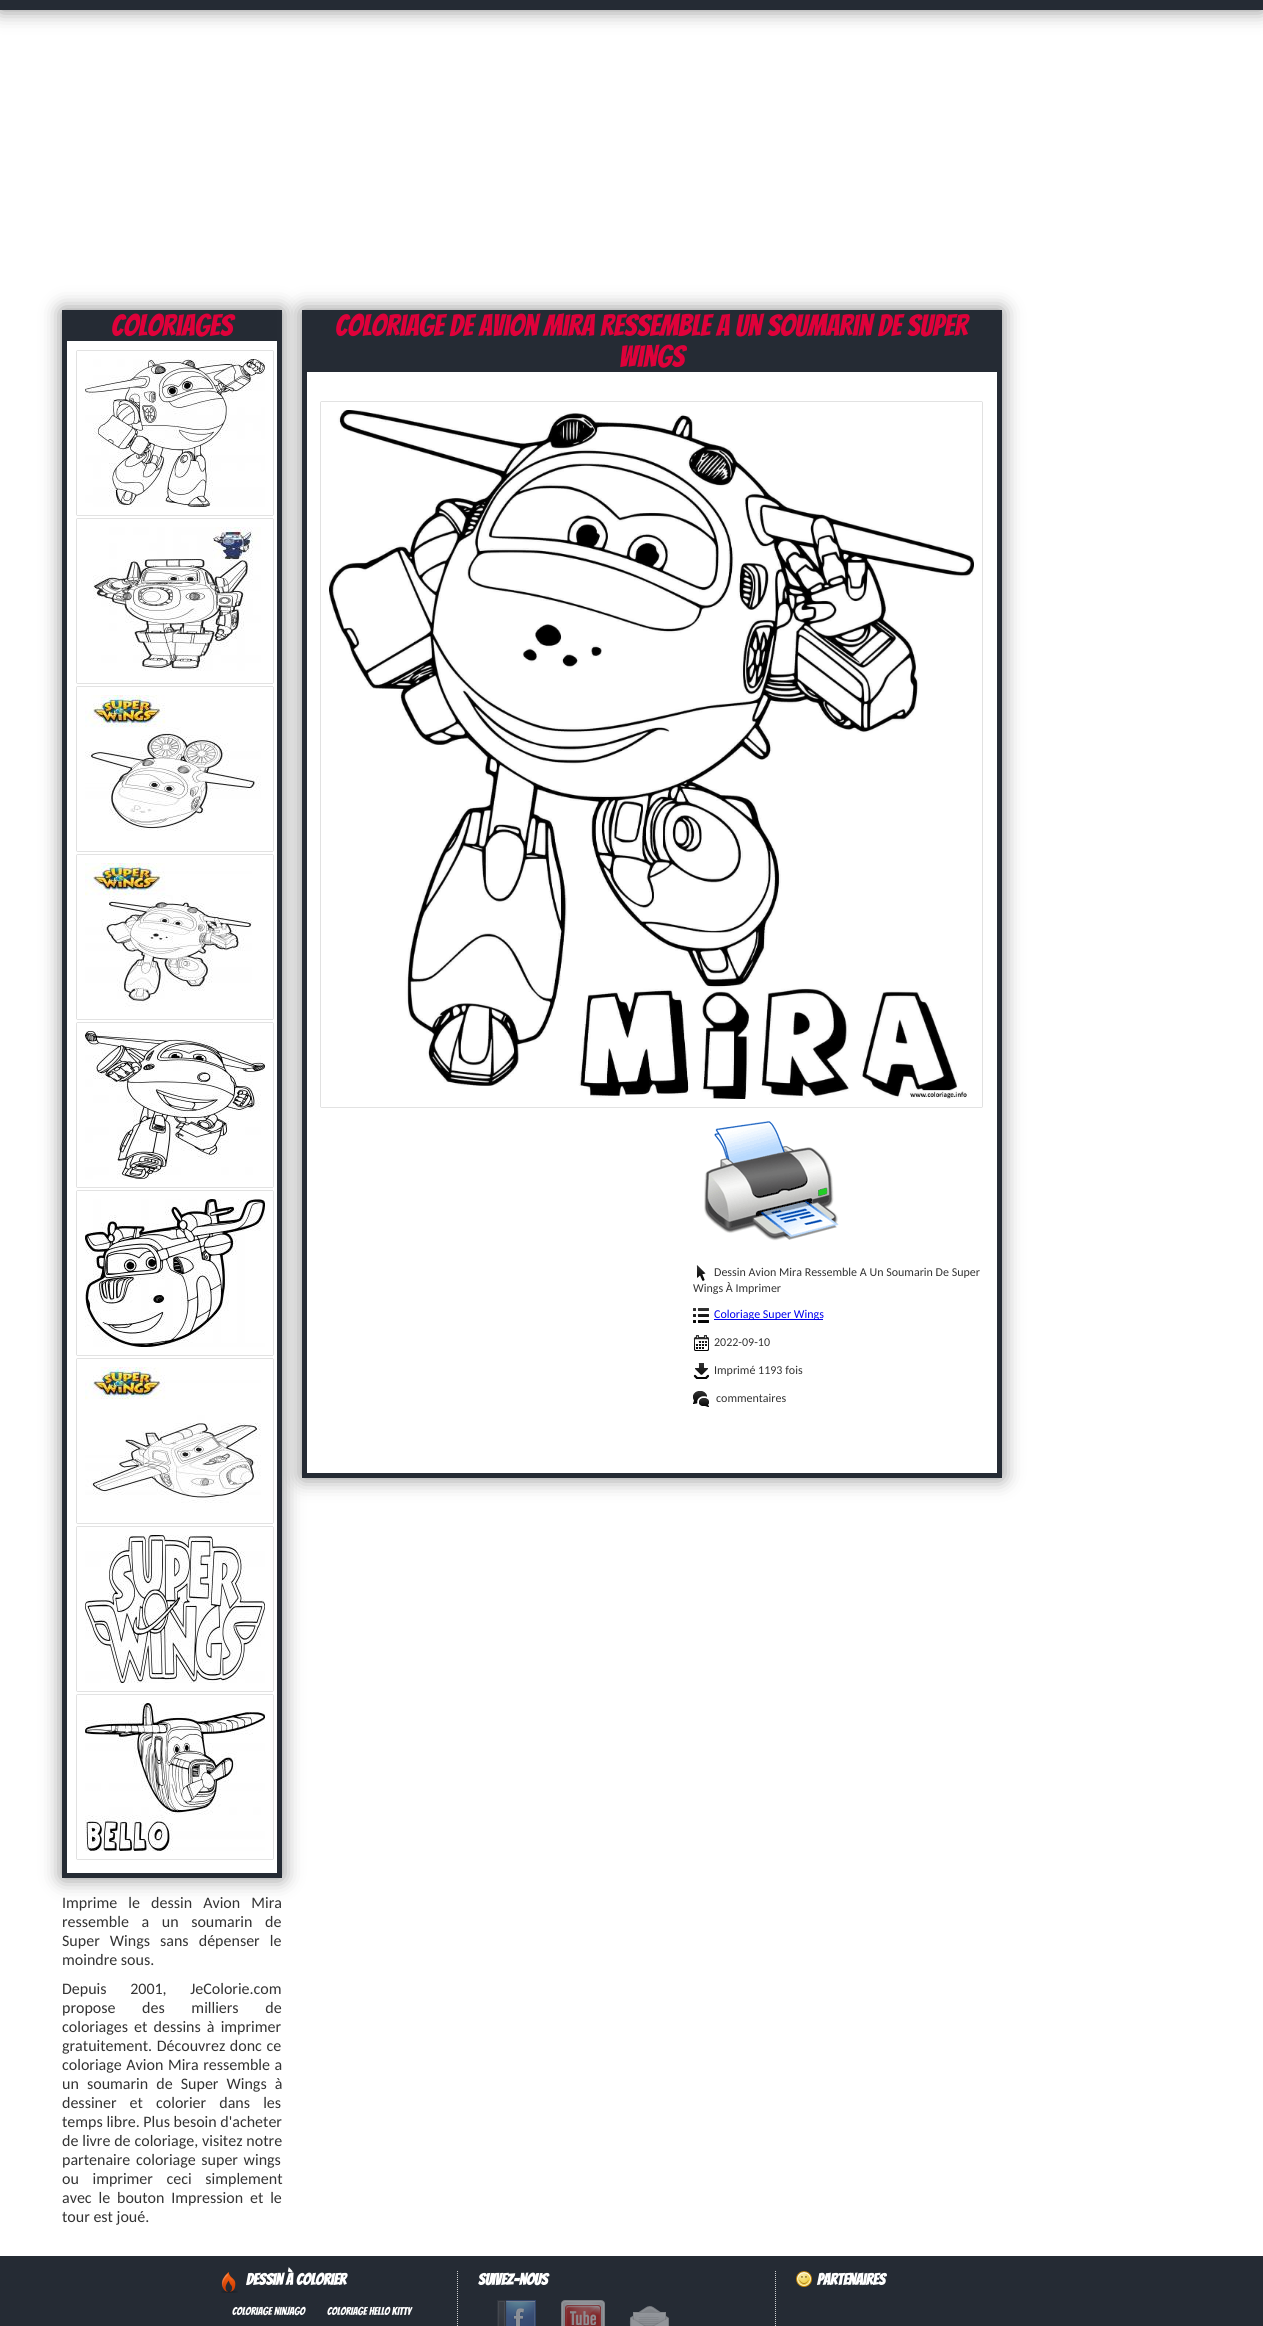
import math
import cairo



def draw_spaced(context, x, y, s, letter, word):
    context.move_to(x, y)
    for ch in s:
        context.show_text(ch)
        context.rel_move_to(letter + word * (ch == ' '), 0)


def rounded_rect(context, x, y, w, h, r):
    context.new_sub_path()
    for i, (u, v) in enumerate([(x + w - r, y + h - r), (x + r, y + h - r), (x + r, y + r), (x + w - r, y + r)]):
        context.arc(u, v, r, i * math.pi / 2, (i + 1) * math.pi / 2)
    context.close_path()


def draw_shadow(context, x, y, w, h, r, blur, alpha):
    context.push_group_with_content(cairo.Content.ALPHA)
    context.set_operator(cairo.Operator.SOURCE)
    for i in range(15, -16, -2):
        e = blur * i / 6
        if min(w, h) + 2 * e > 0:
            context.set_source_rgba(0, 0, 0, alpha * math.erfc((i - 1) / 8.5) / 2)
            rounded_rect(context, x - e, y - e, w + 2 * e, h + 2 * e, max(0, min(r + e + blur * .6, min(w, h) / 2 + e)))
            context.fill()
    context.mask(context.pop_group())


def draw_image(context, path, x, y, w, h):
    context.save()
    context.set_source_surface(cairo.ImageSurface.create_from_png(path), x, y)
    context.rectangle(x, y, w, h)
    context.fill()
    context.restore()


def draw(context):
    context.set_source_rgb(1, 1, 1)
    context.paint()
    context.set_source_rgb(136 / 255, 136 / 255, 136 / 255)
    draw_shadow(context, 0, -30, 1263, 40, 0, 10, 1)
    context.set_source_rgb(37 / 255, 43 / 255, 52 / 255)
    context.rectangle(0, 0, 1263, 10)
    context.fill()
    context.set_source_rgb(136 / 255, 136 / 255, 136 / 255)
    draw_shadow(context, 62, 310, 220, 1568, 0, 10, 1)
    context.set_source_rgb(37 / 255, 43 / 255, 52 / 255)
    context.rectangle(62, 310, 220, 1568)
    context.fill()
    context.set_source_rgb(1, 1, 1)
    context.rectangle(67, 341, 210, 1532)
    context.fill()
    context.save()
    context.set_fill_rule(cairo.FillRule.EVEN_ODD)
    context.new_path()
    context.move_to(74, 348)
    context.line_to(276, 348)
    context.line_to(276, 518)
    context.line_to(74, 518)
    context.close_path()
    context.move_to(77, 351)
    context.line_to(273, 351)
    context.line_to(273, 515)
    context.line_to(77, 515)
    context.close_path()
    context.clip()
    context.set_source_rgb(136 / 255, 136 / 255, 136 / 255)
    draw_shadow(context, 77, 351, 196, 164, 0, 0.5, 1)
    context.restore()
    draw_image(context, "images/1.png", 85, 359, 180, 148)
    context.save()
    context.set_fill_rule(cairo.FillRule.EVEN_ODD)
    context.new_path()
    context.move_to(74, 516)
    context.line_to(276, 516)
    context.line_to(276, 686)
    context.line_to(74, 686)
    context.close_path()
    context.move_to(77, 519)
    context.line_to(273, 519)
    context.line_to(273, 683)
    context.line_to(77, 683)
    context.close_path()
    context.clip()
    context.set_source_rgb(136 / 255, 136 / 255, 136 / 255)
    draw_shadow(context, 77, 519, 196, 164, 0, 0.5, 1)
    context.restore()
    draw_image(context, "images/2.png", 93, 527, 168, 144)
    context.save()
    context.set_fill_rule(cairo.FillRule.EVEN_ODD)
    context.new_path()
    context.move_to(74, 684)
    context.line_to(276, 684)
    context.line_to(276, 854)
    context.line_to(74, 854)
    context.close_path()
    context.move_to(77, 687)
    context.line_to(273, 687)
    context.line_to(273, 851)
    context.line_to(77, 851)
    context.close_path()
    context.clip()
    context.set_source_rgb(136 / 255, 136 / 255, 136 / 255)
    draw_shadow(context, 77, 687, 196, 164, 0, 0.5, 1)
    context.restore()
    draw_image(context, "images/3.png", 85, 695, 176, 136)
    context.save()
    context.set_fill_rule(cairo.FillRule.EVEN_ODD)
    context.new_path()
    context.move_to(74, 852)
    context.line_to(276, 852)
    context.line_to(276, 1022)
    context.line_to(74, 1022)
    context.close_path()
    context.move_to(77, 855)
    context.line_to(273, 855)
    context.line_to(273, 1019)
    context.line_to(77, 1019)
    context.close_path()
    context.clip()
    context.set_source_rgb(136 / 255, 136 / 255, 136 / 255)
    draw_shadow(context, 77, 855, 196, 164, 0, 0.5, 1)
    context.restore()
    draw_image(context, "images/4.png", 85, 863, 167, 144)
    context.save()
    context.set_fill_rule(cairo.FillRule.EVEN_ODD)
    context.new_path()
    context.move_to(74, 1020)
    context.line_to(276, 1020)
    context.line_to(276, 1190)
    context.line_to(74, 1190)
    context.close_path()
    context.move_to(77, 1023)
    context.line_to(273, 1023)
    context.line_to(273, 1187)
    context.line_to(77, 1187)
    context.close_path()
    context.clip()
    context.set_source_rgb(136 / 255, 136 / 255, 136 / 255)
    draw_shadow(context, 77, 1023, 196, 164, 0, 0.5, 1)
    context.restore()
    draw_image(context, "images/5.png", 85, 1031, 180, 148)
    context.save()
    context.set_fill_rule(cairo.FillRule.EVEN_ODD)
    context.new_path()
    context.move_to(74, 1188)
    context.line_to(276, 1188)
    context.line_to(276, 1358)
    context.line_to(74, 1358)
    context.close_path()
    context.move_to(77, 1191)
    context.line_to(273, 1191)
    context.line_to(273, 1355)
    context.line_to(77, 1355)
    context.close_path()
    context.clip()
    context.set_source_rgb(136 / 255, 136 / 255, 136 / 255)
    draw_shadow(context, 77, 1191, 196, 164, 0, 0.5, 1)
    context.restore()
    draw_image(context, "images/6.png", 85, 1199, 180, 148)
    context.save()
    context.set_fill_rule(cairo.FillRule.EVEN_ODD)
    context.new_path()
    context.move_to(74, 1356)
    context.line_to(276, 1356)
    context.line_to(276, 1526)
    context.line_to(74, 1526)
    context.close_path()
    context.move_to(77, 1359)
    context.line_to(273, 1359)
    context.line_to(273, 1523)
    context.line_to(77, 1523)
    context.close_path()
    context.clip()
    context.set_source_rgb(136 / 255, 136 / 255, 136 / 255)
    draw_shadow(context, 77, 1359, 196, 164, 0, 0.5, 1)
    context.restore()
    draw_image(context, "images/7.png", 85, 1367, 176, 136)
    context.save()
    context.set_fill_rule(cairo.FillRule.EVEN_ODD)
    context.new_path()
    context.move_to(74, 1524)
    context.line_to(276, 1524)
    context.line_to(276, 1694)
    context.line_to(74, 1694)
    context.close_path()
    context.move_to(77, 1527)
    context.line_to(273, 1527)
    context.line_to(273, 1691)
    context.line_to(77, 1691)
    context.close_path()
    context.clip()
    context.set_source_rgb(136 / 255, 136 / 255, 136 / 255)
    draw_shadow(context, 77, 1527, 196, 164, 0, 0.5, 1)
    context.restore()
    draw_image(context, "images/8.png", 85, 1535, 180, 148)
    context.save()
    context.set_fill_rule(cairo.FillRule.EVEN_ODD)
    context.new_path()
    context.move_to(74, 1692)
    context.line_to(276, 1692)
    context.line_to(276, 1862)
    context.line_to(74, 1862)
    context.close_path()
    context.move_to(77, 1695)
    context.line_to(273, 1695)
    context.line_to(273, 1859)
    context.line_to(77, 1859)
    context.close_path()
    context.clip()
    context.set_source_rgb(136 / 255, 136 / 255, 136 / 255)
    draw_shadow(context, 77, 1695, 196, 164, 0, 0.5, 1)
    context.restore()
    draw_image(context, "images/9.png", 85, 1703, 180, 148)
    context.set_source_rgb(136 / 255, 136 / 255, 136 / 255)
    draw_shadow(context, 302, 310, 700, 1168, 0, 10, 1)
    context.set_source_rgb(37 / 255, 43 / 255, 52 / 255)
    context.rectangle(302, 310, 700, 1168)
    context.fill()
    context.set_source_rgb(1, 1, 1)
    context.rectangle(307, 372, 690, 1101)
    context.fill()
    context.save()
    context.set_fill_rule(cairo.FillRule.EVEN_ODD)
    context.new_path()
    context.move_to(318, 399)
    context.line_to(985, 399)
    context.line_to(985, 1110)
    context.line_to(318, 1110)
    context.close_path()
    context.move_to(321, 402)
    context.line_to(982, 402)
    context.line_to(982, 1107)
    context.line_to(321, 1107)
    context.close_path()
    context.clip()
    context.set_source_rgb(136 / 255, 136 / 255, 136 / 255)
    draw_shadow(context, 321, 402, 661, 705, 0, 0.5, 1)
    context.restore()
    draw_image(context, "images/10.png", 329, 410, 645, 689)
    draw_image(context, "images/11.png", 704, 1121, 135, 120)
    draw_image(context, "images/12.png", 696, 1265, 10, 16)
    draw_image(context, "images/13.png", 693, 1308, 16, 15)
    context.set_source_rgb(0, 0, 238 / 255)
    context.rectangle(714, 1319, 109, 1)
    context.fill()
    draw_image(context, "images/14.png", 693, 1335, 16, 16)
    draw_image(context, "images/15.png", 693, 1363, 16, 16)
    draw_image(context, "images/16.png", 693, 1391, 16, 16)
    context.set_source_rgb(37 / 255, 43 / 255, 52 / 255)
    context.rectangle(0, 2256, 1263, 70)
    context.fill()
    context.new_path()
    context.move_to(457.5, 2271)
    context.line_to(457.5, 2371)
    context.set_source_rgb(207 / 255, 207 / 255, 207 / 255)
    context.set_line_width(1)
    context.set_dash([1, 1])
    context.stroke()
    draw_image(context, "images/17.png", 221, 2272, 17, 21)
    context.new_path()
    context.move_to(775.5, 2271)
    context.line_to(775.5, 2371)
    context.stroke()
    draw_image(context, "images/18.png", 497, 2300, 39, 26)
    draw_image(context, "images/19.png", 561, 2300, 44, 26)
    draw_image(context, "images/20.png", 629, 2306, 40, 20)
    draw_image(context, "images/21.png", 796, 2271, 16, 16)
    context.select_font_face("Bangers")
    context.set_font_size(30)
    context.set_source_rgb(223 / 255, 1 / 255, 58 / 255)
    context.move_to(111, 336)
    context.show_text("Coloriages")
    context.select_font_face("Carlito")
    context.set_font_size(16)
    context.set_source_rgb(51 / 255, 51 / 255, 51 / 255)
    draw_spaced(context, 62, 1908, "Imprime le dessin Avion Mira", 0, 7.5)
    draw_spaced(context, 62, 1927, "ressemble a un soumarin de", 0, 9)
    draw_spaced(context, 62, 1946, "Super Wings sans dépenser le", 0, 6.5)
    context.move_to(62, 1965)
    context.show_text("moindre sous.")
    draw_spaced(context, 62, 1994, "Depuis 2001, JeColorie.com", 0, 20)
    draw_spaced(context, 62, 2013, "propose des milliers de", 0, 23)
    draw_spaced(context, 62, 2032, "coloriages et dessins à imprimer", 0, 2.5)
    draw_spaced(context, 62, 2051, "gratuitement. Découvrez donc ce", 0, 1)
    draw_spaced(context, 62, 2070, "coloriage Avion Mira ressemble a", 0, 1)
    draw_spaced(context, 62, 2089, "un soumarin de Super Wings à", 0, 4.5)
    draw_spaced(context, 62, 2108, "dessiner et colorier dans les", 0, 9.5)
    context.move_to(62, 2127)
    context.show_text("temps libre. Plus besoin d'acheter")
    draw_spaced(context, 62, 2146, "de livre de coloriage, visitez notre", 0, 0.25)
    context.move_to(62, 2165)
    context.show_text("partenaire")
    draw_spaced(context, 136, 2165, "coloriage super wings", 0, 2)
    draw_spaced(context, 62, 2184, "ou imprimer ceci simplement", 0, 10)
    draw_spaced(context, 62, 2203, "avec le bouton Impression et le", 0, 3.25)
    context.move_to(62, 2222)
    context.show_text("tour est joué.")
    context.select_font_face("Bangers")
    context.set_font_size(30)
    context.set_source_rgb(223 / 255, 1 / 255, 58 / 255)
    context.move_to(335, 336)
    context.show_text("Coloriage De Avion Mira Ressemble A Un Soumarin De Super")
    context.move_to(619, 367)
    context.show_text("Wings")
    context.select_font_face("Carlito")
    context.set_font_size(12)
    context.set_source_rgb(51 / 255, 51 / 255, 51 / 255)
    context.move_to(714, 1276)
    context.show_text("Dessin Avion Mira Ressemble A Un Soumarin De Super")
    context.move_to(693, 1292)
    context.show_text("Wings À Imprimer")
    context.set_source_rgb(0, 0, 238 / 255)
    context.move_to(714, 1318)
    context.show_text("Coloriage Super Wings")
    context.set_source_rgb(51 / 255, 51 / 255, 51 / 255)
    context.move_to(714, 1346)
    context.show_text("2022-09-10")
    context.move_to(714, 1374)
    context.show_text("Imprimé 1193 fois")
    context.move_to(716, 1402)
    context.show_text("commentaires")
    context.select_font_face("Bangers", cairo.FontSlant.NORMAL, cairo.FontWeight.BOLD)
    context.set_font_size(16)
    context.set_source_rgb(1, 1, 1)
    context.move_to(246, 2285)
    context.show_text("Dessin à colorier")
    context.select_font_face("Bangers")
    context.set_font_size(11)
    context.move_to(232, 2315)
    context.show_text("Coloriage Ninjago")
    context.move_to(327, 2315)
    context.show_text("Coloriage Hello Kitty")
    context.select_font_face("Bangers", cairo.FontSlant.NORMAL, cairo.FontWeight.BOLD)
    context.set_font_size(16)
    context.move_to(478, 2285)
    context.show_text("Suivez-nous")
    context.move_to(817, 2285)
    context.show_text("Partenaires")


surface = cairo.ImageSurface(cairo.Format.RGB24, 1263, 2326)
context = cairo.Context(surface)
options = cairo.FontOptions()
options.set_hint_metrics(cairo.HintMetrics.OFF)
options.set_hint_style(cairo.HintStyle.NONE)
context.set_font_options(options)
context.set_miter_limit(4)
draw(context)
surface.write_to_png("out.png")
